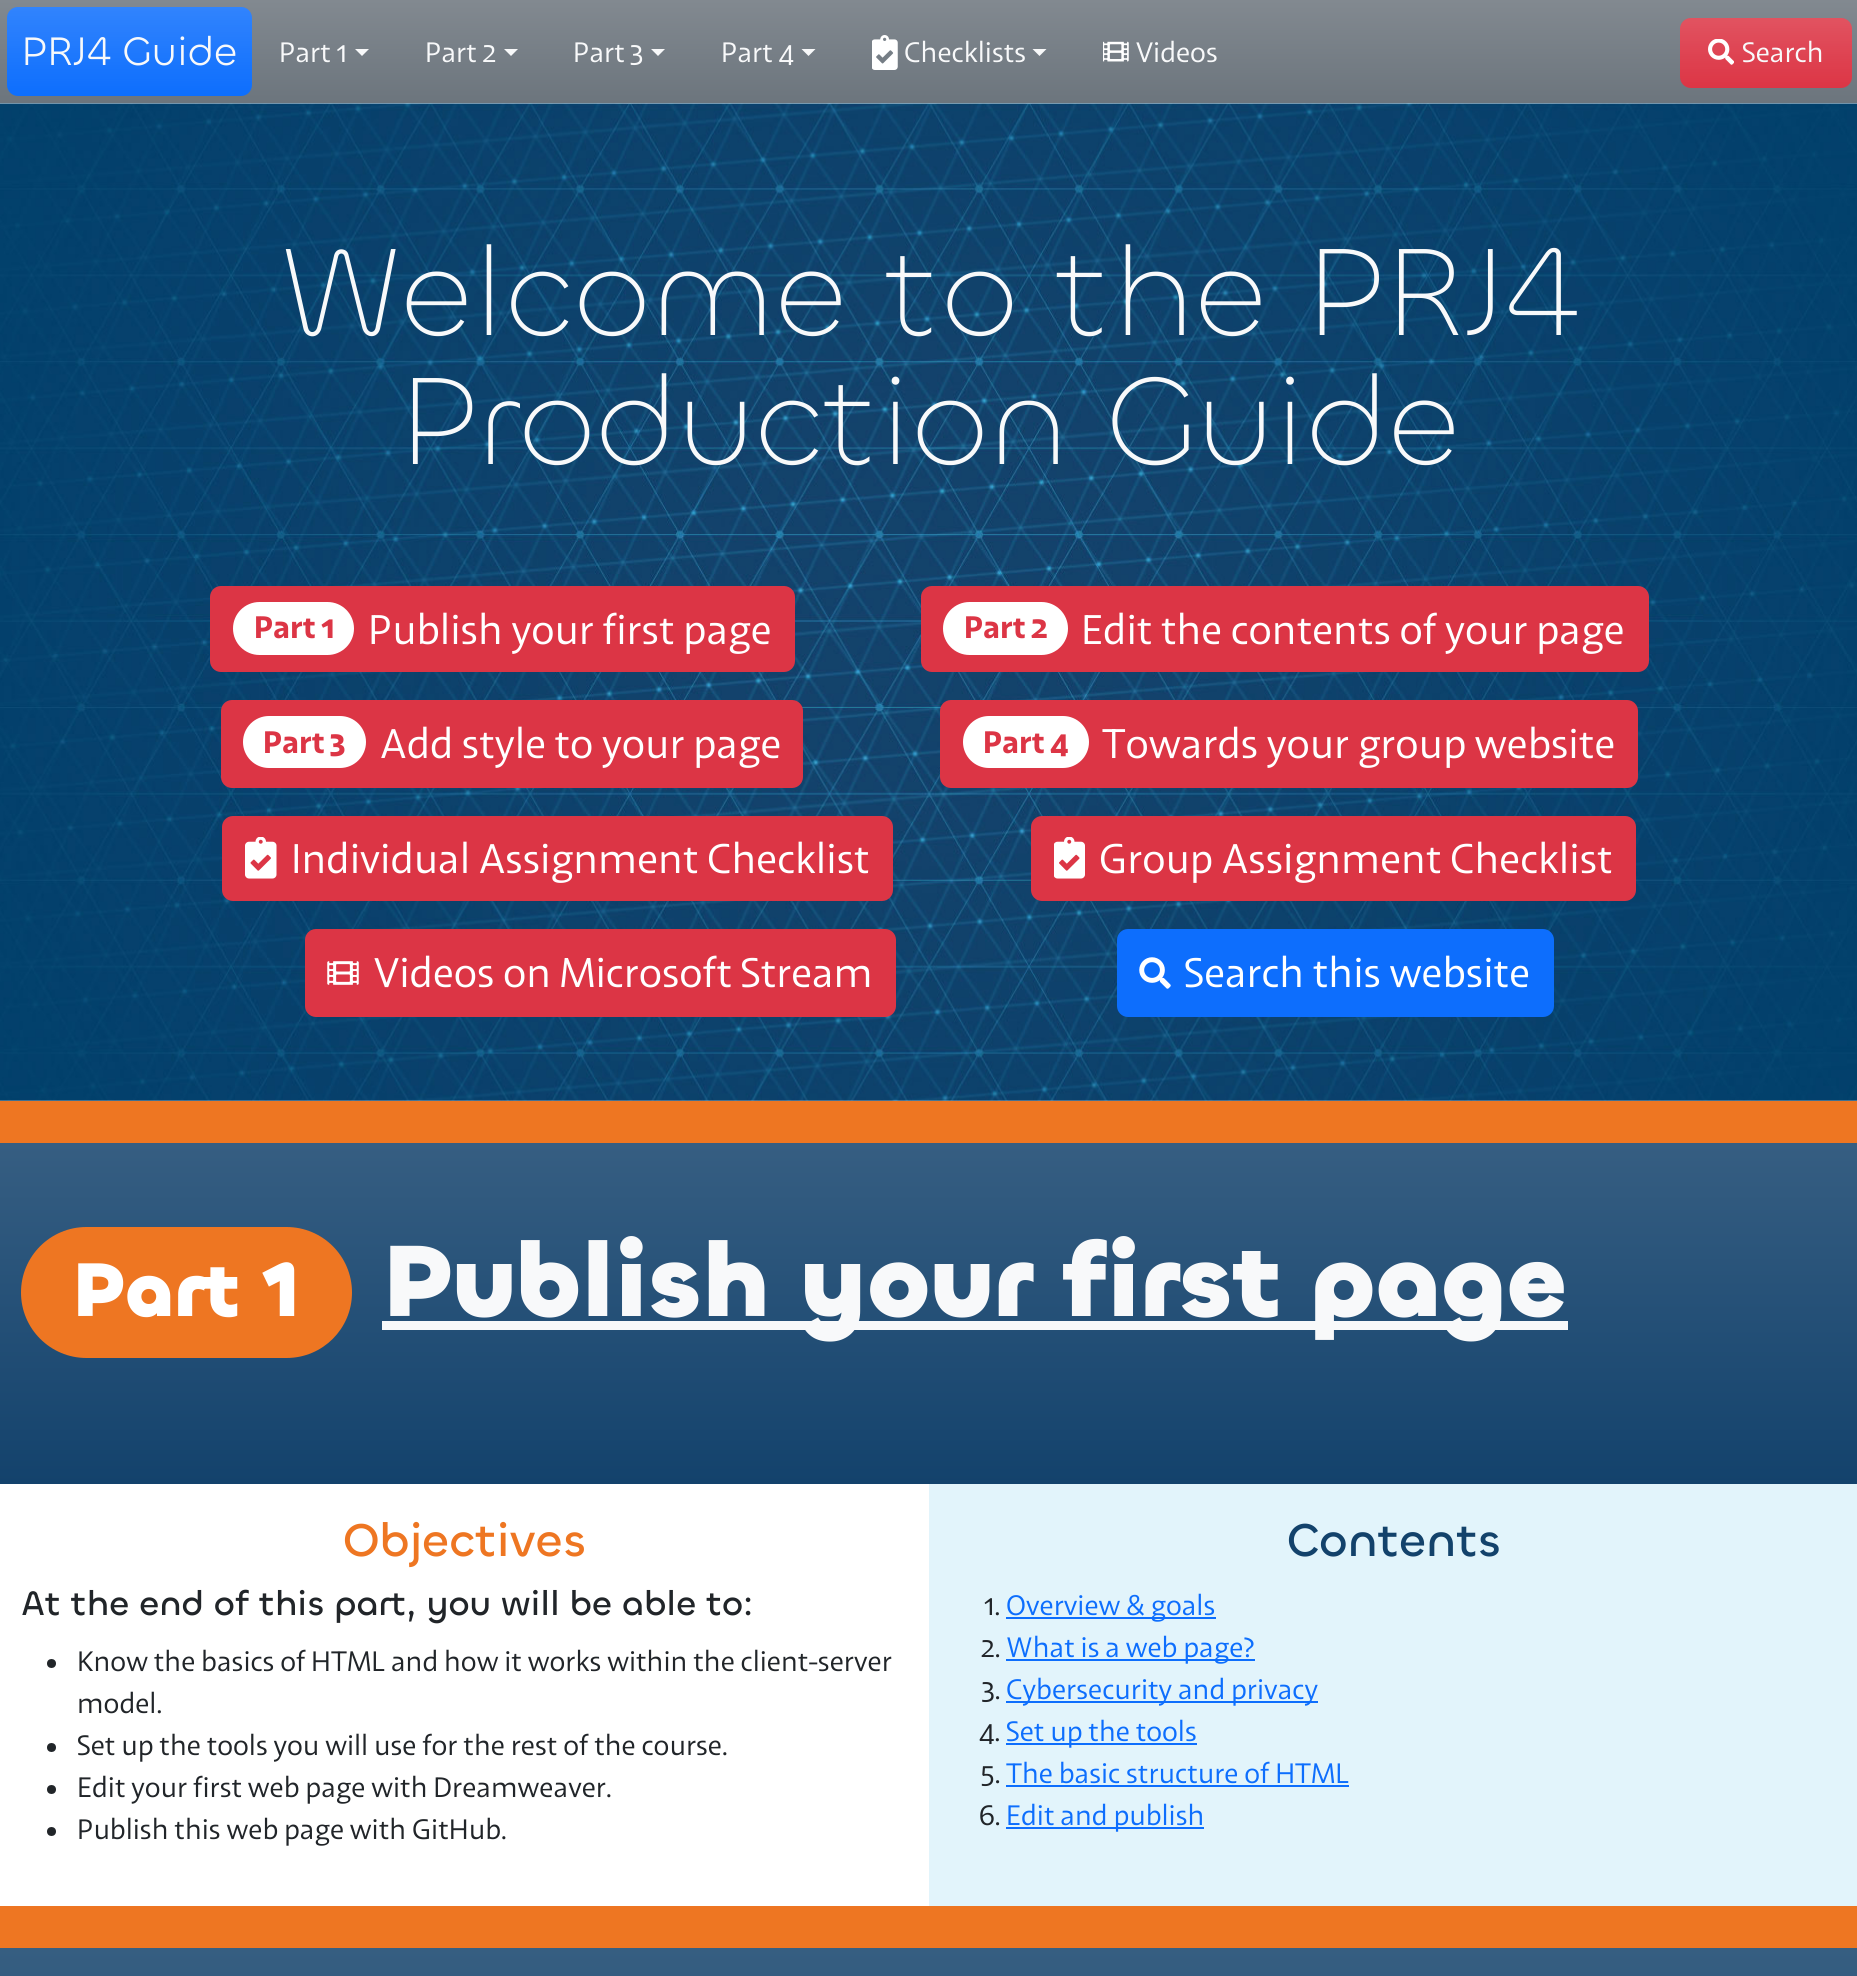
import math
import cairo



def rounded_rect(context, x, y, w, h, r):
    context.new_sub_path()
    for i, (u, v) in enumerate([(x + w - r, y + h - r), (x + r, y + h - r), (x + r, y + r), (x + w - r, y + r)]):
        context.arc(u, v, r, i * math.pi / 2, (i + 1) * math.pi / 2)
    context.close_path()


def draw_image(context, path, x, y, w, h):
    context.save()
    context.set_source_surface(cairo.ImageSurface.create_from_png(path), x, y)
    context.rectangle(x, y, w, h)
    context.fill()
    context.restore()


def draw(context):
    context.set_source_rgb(1, 1, 1)
    context.paint()
    gradient = cairo.LinearGradient(929, 0, 929, 103)
    gradient.add_color_stop_rgba(0, 130 / 255, 137 / 255, 144 / 255, 1)
    gradient.add_color_stop_rgba(1, 108 / 255, 117 / 255, 125 / 255, 1)
    context.set_source(gradient)
    context.rectangle(0, 0, 1857, 103)
    context.fill()
    context.set_source_rgb(13 / 255, 110 / 255, 253 / 255)
    rounded_rect(context, 7, 7, 245, 89, 11)
    context.fill()
    gradient = cairo.LinearGradient(130, 7, 130, 96)
    gradient.add_color_stop_rgba(0, 1, 1, 1, 0.15)
    gradient.add_color_stop_rgba(1, 1, 1, 1, 0)
    context.set_source(gradient)
    rounded_rect(context, 7, 7, 245, 89, 11)
    context.fill()
    context.set_source_rgb(248 / 255, 249 / 255, 250 / 255)
    context.new_path()
    context.move_to(355, 49)
    context.line_to(369, 49)
    context.line_to(362, 56)
    context.close_path()
    context.fill()
    context.new_path()
    context.move_to(504, 49)
    context.line_to(518, 49)
    context.line_to(511, 56)
    context.close_path()
    context.fill()
    context.new_path()
    context.move_to(651, 49)
    context.line_to(665, 49)
    context.line_to(658, 56)
    context.close_path()
    context.fill()
    context.new_path()
    context.move_to(801.5, 49)
    context.line_to(815.5, 49)
    context.line_to(808.5, 56)
    context.close_path()
    context.fill()
    draw_image(context, "images/1.png", 872, 35, 26, 35)
    context.new_path()
    context.move_to(1032.5, 49)
    context.line_to(1046.5, 49)
    context.line_to(1039.5, 56)
    context.close_path()
    context.fill()
    draw_image(context, "images/2.png", 1103, 41, 26, 21)
    context.set_source_rgb(220 / 255, 53 / 255, 69 / 255)
    rounded_rect(context, 1680, 18, 172, 70, 11)
    context.fill()
    gradient = cairo.LinearGradient(1766, 17, 1766, 88)
    gradient.add_color_stop_rgba(0, 1, 1, 1, 0.15)
    gradient.add_color_stop_rgba(1, 1, 1, 1, 0)
    context.set_source(gradient)
    rounded_rect(context, 1680, 18, 172, 70, 11)
    context.fill()
    draw_image(context, "images/3.png", 1708, 39, 26, 26)
    draw_image(context, "images/4.png", 0, 103, 1857, 998)
    context.set_source_rgb(220 / 255, 53 / 255, 69 / 255)
    rounded_rect(context, 211, 587, 583, 84, 10)
    context.fill_preserve()
    context.stroke()
    context.set_source_rgb(1, 1, 1)
    rounded_rect(context, 233, 602, 121, 53, 26.5)
    context.fill()
    context.set_source_rgb(220 / 255, 53 / 255, 69 / 255)
    rounded_rect(context, 922, 587, 726, 84, 10)
    context.fill_preserve()
    context.stroke()
    context.set_source_rgb(1, 1, 1)
    rounded_rect(context, 943, 602, 125, 53, 26.5)
    context.fill()
    context.set_source_rgb(220 / 255, 53 / 255, 69 / 255)
    rounded_rect(context, 222, 701, 580, 86, 10)
    context.fill_preserve()
    context.stroke()
    context.set_source_rgb(1, 1, 1)
    rounded_rect(context, 243, 716, 123, 52, 26)
    context.fill()
    context.set_source_rgb(220 / 255, 53 / 255, 69 / 255)
    rounded_rect(context, 941, 701, 696, 86, 10)
    context.fill_preserve()
    context.stroke()
    context.set_source_rgb(1, 1, 1)
    rounded_rect(context, 963, 716, 126, 52, 26)
    context.fill()
    context.set_source_rgb(220 / 255, 53 / 255, 69 / 255)
    rounded_rect(context, 223, 817, 669, 83, 10)
    context.fill_preserve()
    context.stroke()
    draw_image(context, "images/5.png", 245, 837, 32, 42)
    rounded_rect(context, 1032, 817, 603, 83, 10)
    context.fill_preserve()
    context.stroke()
    draw_image(context, "images/6.png", 1054, 837, 31, 42)
    rounded_rect(context, 306, 930, 589, 86, 10)
    context.fill_preserve()
    context.stroke()
    draw_image(context, "images/7.png", 327, 961, 32, 24)
    context.set_source_rgb(13 / 255, 110 / 255, 253 / 255)
    rounded_rect(context, 1118, 930, 435, 86, 10)
    context.fill_preserve()
    context.stroke()
    draw_image(context, "images/8.png", 1139, 957, 32, 32)
    gradient = cairo.LinearGradient(929, 1143, 929, 1484)
    gradient.add_color_stop_rgba(0, 54 / 255, 94 / 255, 130 / 255, 1)
    gradient.add_color_stop_rgba(1, 19 / 255, 66 / 255, 108 / 255, 1)
    context.set_source(gradient)
    context.rectangle(0, 1143, 1857, 341)
    context.fill()
    context.set_source_rgb(238 / 255, 118 / 255, 34 / 255)
    context.rectangle(0, 1101, 1857, 42)
    context.fill()
    rounded_rect(context, 21, 1227, 331, 131, 65.5)
    context.fill()
    context.set_source_rgb(248 / 255, 249 / 255, 250 / 255)
    context.rectangle(382, 1321, 1186, 9)
    context.fill()
    context.set_source_rgb(33 / 255, 37 / 255, 41 / 255)
    context.arc(51.5, 1663.5, 4.5, 0, 2 * math.pi)
    context.fill()
    context.arc(51.5, 1747.5, 4.5, 0, 2 * math.pi)
    context.fill()
    context.arc(51.5, 1789.5, 4.5, 0, 2 * math.pi)
    context.fill()
    context.arc(51.5, 1831.5, 4.5, 0, 2 * math.pi)
    context.fill()
    context.set_source_rgb(226 / 255, 244 / 255, 251 / 255)
    context.rectangle(929, 1484, 928, 422)
    context.fill()
    context.set_source_rgb(13 / 255, 110 / 255, 253 / 255)
    context.rectangle(1006, 1617, 210, 2)
    context.fill()
    context.rectangle(1006, 1659, 249, 2)
    context.fill()
    context.rectangle(1006, 1701, 312, 2)
    context.fill()
    context.rectangle(1006, 1743, 191, 2)
    context.fill()
    context.rectangle(1006, 1785, 343, 2)
    context.fill()
    context.rectangle(1006, 1827, 198, 2)
    context.fill()
    gradient = cairo.LinearGradient(929, 1948, 929, 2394)
    gradient.add_color_stop_rgba(0, 54 / 255, 94 / 255, 129 / 255, 1)
    gradient.add_color_stop_rgba(1, 19 / 255, 66 / 255, 107 / 255, 1)
    context.set_source(gradient)
    context.rectangle(0, 1948, 1857, 28)
    context.fill()
    context.set_source_rgb(238 / 255, 118 / 255, 34 / 255)
    context.rectangle(0, 1906, 1857, 42)
    context.fill()
    context.select_font_face("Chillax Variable")
    context.set_font_size(41.25)
    context.set_source_rgb(248 / 255, 249 / 255, 250 / 255)
    context.move_to(21, 65)
    context.show_text("PRJ4 Guide")
    context.select_font_face("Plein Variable")
    context.set_font_size(28)
    context.move_to(279, 62)
    context.show_text("Part 1")
    context.move_to(425, 62)
    context.show_text("Part 2")
    context.move_to(573, 62)
    context.show_text("Part 3")
    context.move_to(721, 62)
    context.show_text("Part 4")
    context.move_to(904, 62)
    context.show_text("Checklists")
    context.move_to(1136, 62)
    context.show_text("Videos")
    context.move_to(1742, 62)
    context.show_text("Search")
    context.select_font_face("Chillax Variable Light")
    context.set_font_size(129.1)
    context.move_to(281, 335)
    context.show_text("Welcome to the PRJ4")
    context.move_to(398, 464)
    context.show_text("Production Guide")
    context.select_font_face("Plein Variable", cairo.FontSlant.NORMAL, cairo.FontWeight.BOLD)
    context.set_font_size(31)
    context.set_source_rgb(220 / 255, 53 / 255, 69 / 255)
    context.move_to(254, 638)
    context.show_text("Part 1")
    context.select_font_face("Plein Variable")
    context.set_font_size(41.25)
    context.set_source_rgb(1, 1, 1)
    context.move_to(368, 644)
    context.show_text("Publish your first page")
    context.select_font_face("Plein Variable", cairo.FontSlant.NORMAL, cairo.FontWeight.BOLD)
    context.set_font_size(31)
    context.set_source_rgb(220 / 255, 53 / 255, 69 / 255)
    context.move_to(964, 638)
    context.show_text("Part 2")
    context.select_font_face("Plein Variable")
    context.set_font_size(41.25)
    context.set_source_rgb(1, 1, 1)
    context.move_to(1081, 644)
    context.show_text("Edit the contents of your page")
    context.select_font_face("Plein Variable", cairo.FontSlant.NORMAL, cairo.FontWeight.BOLD)
    context.set_font_size(31)
    context.set_source_rgb(220 / 255, 53 / 255, 69 / 255)
    context.move_to(263, 753)
    context.show_text("Part 3")
    context.select_font_face("Plein Variable")
    context.set_font_size(41.25)
    context.set_source_rgb(1, 1, 1)
    context.move_to(380, 758)
    context.show_text("Add style to your page")
    context.select_font_face("Plein Variable", cairo.FontSlant.NORMAL, cairo.FontWeight.BOLD)
    context.set_font_size(31)
    context.set_source_rgb(220 / 255, 53 / 255, 69 / 255)
    context.move_to(983, 753)
    context.show_text("Part 4")
    context.select_font_face("Plein Variable")
    context.set_font_size(41.25)
    context.set_source_rgb(1, 1, 1)
    context.move_to(1102, 758)
    context.show_text("Towards your group website")
    context.move_to(291, 873)
    context.show_text("Individual Assignment Checklist")
    context.move_to(1099, 873)
    context.show_text("Group Assignment Checklist")
    context.move_to(374, 987)
    context.show_text("Videos on Microsoft Stream")
    context.move_to(1184, 987)
    context.show_text("Search this website")
    context.select_font_face("Chillax Variable", cairo.FontSlant.NORMAL, cairo.FontWeight.BOLD)
    context.set_font_size(78)
    context.move_to(72, 1316)
    context.show_text("Part 1")
    context.set_font_size(104)
    context.set_source_rgb(248 / 255, 249 / 255, 250 / 255)
    context.move_to(382, 1316)
    context.show_text("Publish your first page")
    context.select_font_face("Chillax Variable Medium")
    context.set_font_size(47.5)
    context.set_source_rgb(238 / 255, 118 / 255, 34 / 255)
    context.move_to(343, 1556)
    context.show_text("Objectives")
    context.set_font_size(35)
    context.set_source_rgb(33 / 255, 37 / 255, 41 / 255)
    context.move_to(21, 1615)
    context.show_text("At the end of this part, you will be able to:")
    context.select_font_face("Plein Variable")
    context.set_font_size(28)
    context.move_to(77, 1671)
    context.show_text("Know the basics of HTML and how it works within the client-server")
    context.move_to(77, 1713)
    context.show_text("model.")
    context.move_to(77, 1755)
    context.show_text("Set up the tools you will use for the rest of the course.")
    context.move_to(77, 1797)
    context.show_text("Edit your first web page with Dreamweaver.")
    context.move_to(77, 1839)
    context.show_text("Publish this web page with GitHub.")
    context.select_font_face("Chillax Variable Medium")
    context.set_font_size(47.5)
    context.set_source_rgb(19 / 255, 66 / 255, 107 / 255)
    context.move_to(1287, 1556)
    context.show_text("Contents")
    context.select_font_face("Plein Variable")
    context.set_font_size(28)
    context.set_source_rgb(33 / 255, 37 / 255, 41 / 255)
    context.move_to(984, 1615)
    context.show_text("1.")
    context.set_source_rgb(13 / 255, 110 / 255, 253 / 255)
    context.move_to(1006, 1615)
    context.show_text("Overview & goals")
    context.set_source_rgb(33 / 255, 37 / 255, 41 / 255)
    context.move_to(981, 1657)
    context.show_text("2.")
    context.set_source_rgb(13 / 255, 110 / 255, 253 / 255)
    context.move_to(1006, 1657)
    context.show_text("What is a web page?")
    context.set_source_rgb(33 / 255, 37 / 255, 41 / 255)
    context.move_to(982, 1699)
    context.show_text("3.")
    context.set_source_rgb(13 / 255, 110 / 255, 253 / 255)
    context.move_to(1006, 1699)
    context.show_text("Cybersecurity and privacy")
    context.set_source_rgb(33 / 255, 37 / 255, 41 / 255)
    context.move_to(979, 1741)
    context.show_text("4.")
    context.set_source_rgb(13 / 255, 110 / 255, 253 / 255)
    context.move_to(1006, 1741)
    context.show_text("Set up the tools")
    context.set_source_rgb(33 / 255, 37 / 255, 41 / 255)
    context.move_to(981, 1783)
    context.show_text("5.")
    context.set_source_rgb(13 / 255, 110 / 255, 253 / 255)
    context.move_to(1006, 1783)
    context.show_text("The basic structure of HTML")
    context.set_source_rgb(33 / 255, 37 / 255, 41 / 255)
    context.move_to(979, 1825)
    context.show_text("6.")
    context.set_source_rgb(13 / 255, 110 / 255, 253 / 255)
    context.move_to(1006, 1825)
    context.show_text("Edit and publish")


surface = cairo.ImageSurface(cairo.Format.RGB24, 1857, 1976)
context = cairo.Context(surface)
options = cairo.FontOptions()
options.set_hint_metrics(cairo.HintMetrics.OFF)
options.set_hint_style(cairo.HintStyle.NONE)
context.set_font_options(options)
context.set_miter_limit(4)
draw(context)
surface.write_to_png("out.png")
